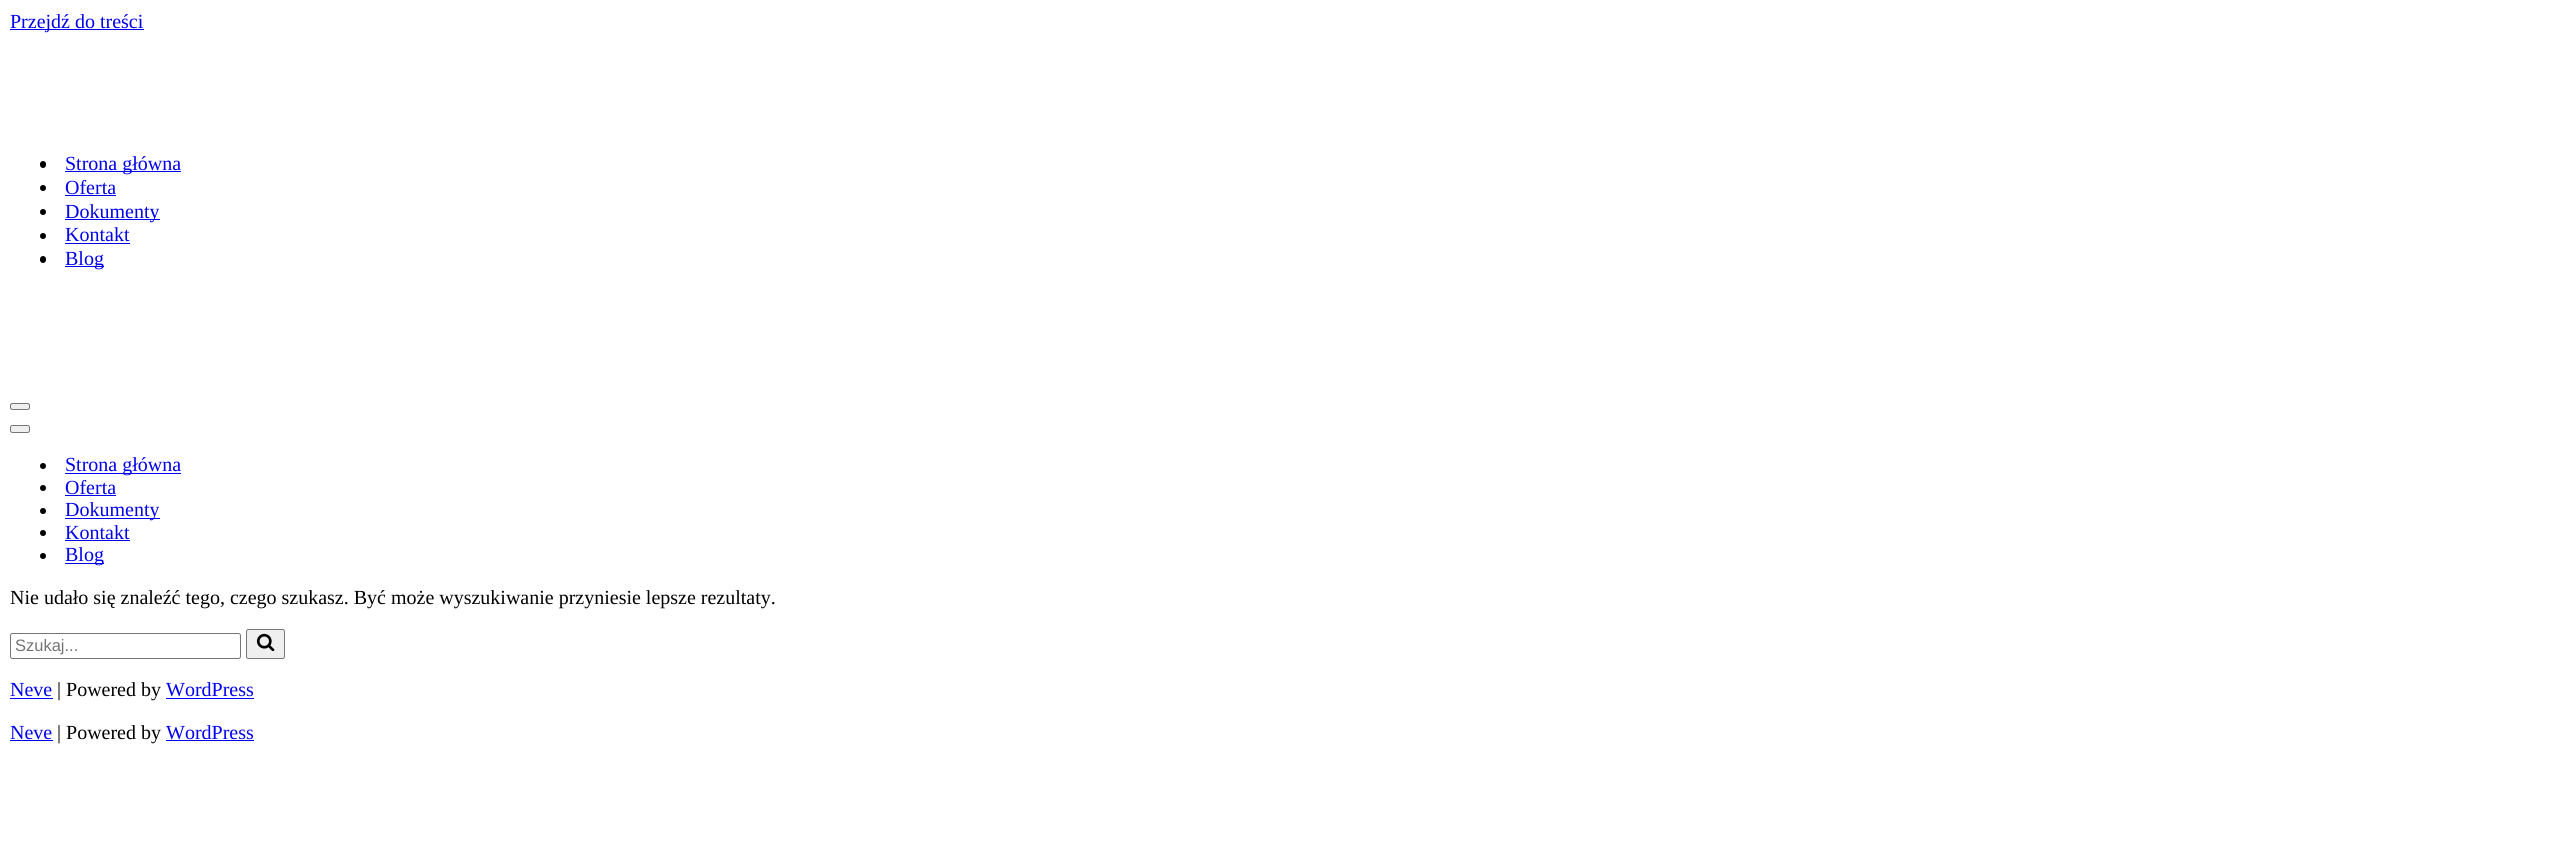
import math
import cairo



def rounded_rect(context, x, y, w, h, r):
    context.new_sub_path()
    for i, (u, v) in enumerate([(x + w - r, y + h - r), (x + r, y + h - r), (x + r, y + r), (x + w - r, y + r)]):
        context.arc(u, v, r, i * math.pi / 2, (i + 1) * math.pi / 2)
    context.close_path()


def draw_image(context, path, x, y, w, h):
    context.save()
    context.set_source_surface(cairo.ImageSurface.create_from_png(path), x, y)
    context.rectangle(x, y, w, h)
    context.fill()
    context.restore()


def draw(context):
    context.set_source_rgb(1, 1, 1)
    context.paint()
    context.set_source_rgb(0, 0, 238 / 255)
    context.rectangle(10, 29, 134, 1)
    context.fill()
    context.set_source_rgb(0, 0, 0)
    rounded_rect(context, 40, 161, 6, 7, 3)
    context.fill()
    context.set_source_rgb(0, 0, 238 / 255)
    context.rectangle(65, 171, 116, 1)
    context.fill()
    context.set_source_rgb(0, 0, 0)
    context.arc(43, 188, 3, 0, 2 * math.pi)
    context.fill()
    context.set_source_rgb(0, 0, 238 / 255)
    context.rectangle(65, 195, 51, 1)
    context.fill()
    context.set_source_rgb(0, 0, 0)
    context.arc(43, 212, 3, 0, 2 * math.pi)
    context.fill()
    context.set_source_rgb(0, 0, 238 / 255)
    context.rectangle(65, 219, 95, 1)
    context.fill()
    context.set_source_rgb(0, 0, 0)
    context.arc(43, 236, 3, 0, 2 * math.pi)
    context.fill()
    context.set_source_rgb(0, 0, 238 / 255)
    context.rectangle(65, 243, 65, 1)
    context.fill()
    context.set_source_rgb(0, 0, 0)
    rounded_rect(context, 40, 256, 6, 7, 3)
    context.fill()
    context.set_source_rgb(0, 0, 238 / 255)
    context.rectangle(65, 266, 39, 1)
    context.fill()
    context.set_source_rgb(239 / 255, 239 / 255, 239 / 255)
    rounded_rect(context, 10.5, 403.5, 19, 6, 2)
    context.fill_preserve()
    context.set_source_rgb(118 / 255, 118 / 255, 118 / 255)
    context.set_line_width(1)
    context.stroke()
    context.set_source_rgb(239 / 255, 239 / 255, 239 / 255)
    rounded_rect(context, 10.5, 425.5, 19, 7, 2)
    context.fill_preserve()
    context.set_source_rgb(118 / 255, 118 / 255, 118 / 255)
    context.stroke()
    context.set_source_rgb(0, 0, 0)
    context.arc(43, 466, 3, 0, 2 * math.pi)
    context.fill()
    context.set_source_rgb(0, 0, 238 / 255)
    context.rectangle(65, 473, 116, 1)
    context.fill()
    context.set_source_rgb(0, 0, 0)
    context.arc(43, 488, 3, 0, 2 * math.pi)
    context.fill()
    context.set_source_rgb(0, 0, 238 / 255)
    context.rectangle(65, 495, 51, 1)
    context.fill()
    context.set_source_rgb(0, 0, 0)
    context.arc(43, 511, 3, 0, 2 * math.pi)
    context.fill()
    context.set_source_rgb(0, 0, 238 / 255)
    context.rectangle(65, 518, 95, 1)
    context.fill()
    context.set_source_rgb(0, 0, 0)
    context.arc(43, 533, 3, 0, 2 * math.pi)
    context.fill()
    context.set_source_rgb(0, 0, 238 / 255)
    context.rectangle(65, 540, 65, 1)
    context.fill()
    context.set_source_rgb(0, 0, 0)
    context.arc(43, 556, 3, 0, 2 * math.pi)
    context.fill()
    context.set_source_rgb(0, 0, 238 / 255)
    context.rectangle(65, 563, 39, 1)
    context.fill()
    rounded_rect(context, 10.5, 633.5, 230, 25, 2)
    context.set_source_rgb(118 / 255, 118 / 255, 118 / 255)
    context.stroke()
    context.set_source_rgb(239 / 255, 239 / 255, 239 / 255)
    rounded_rect(context, 246.5, 629.5, 38, 29, 2)
    context.fill_preserve()
    context.set_source_rgb(118 / 255, 118 / 255, 118 / 255)
    context.stroke()
    draw_image(context, "images/1.png", 256, 633, 19, 18)
    context.set_source_rgb(0, 0, 238 / 255)
    context.rectangle(10, 698, 43, 1)
    context.fill()
    context.rectangle(166, 698, 88, 1)
    context.fill()
    context.rectangle(10, 740, 43, 1)
    context.fill()
    context.rectangle(166, 740, 88, 1)
    context.fill()
    context.select_font_face("Liberation Serif")
    context.set_font_size(20)
    context.move_to(10, 28)
    context.show_text("Przejdź do treści")
    context.move_to(65, 170)
    context.show_text("Strona główna")
    context.move_to(65, 194)
    context.show_text("Oferta")
    context.move_to(65, 218)
    context.show_text("Dokumenty")
    context.move_to(65, 241)
    context.show_text("Kontakt")
    context.move_to(65, 265)
    context.show_text("Blog")
    context.move_to(65, 471)
    context.show_text("Strona główna")
    context.move_to(65, 494)
    context.show_text("Oferta")
    context.move_to(65, 516)
    context.show_text("Dokumenty")
    context.move_to(65, 539)
    context.show_text("Kontakt")
    context.move_to(65, 561)
    context.show_text("Blog")
    context.set_source_rgb(0, 0, 0)
    context.move_to(10, 604)
    context.show_text("Nie udało się znaleźć tego, czego szukasz. Być może wyszukiwanie przyniesie lepsze rezultaty.")
    context.select_font_face("Liberation Sans")
    context.set_font_size(16.5)
    context.set_source_rgb(117 / 255, 117 / 255, 117 / 255)
    context.move_to(15, 651)
    context.show_text("Szukaj...")
    context.select_font_face("Liberation Serif")
    context.set_font_size(20)
    context.set_source_rgb(0, 0, 238 / 255)
    context.move_to(10, 696)
    context.show_text("Neve")
    context.set_source_rgb(0, 0, 0)
    context.move_to(57, 696)
    context.show_text("| Powered by")
    context.set_source_rgb(0, 0, 238 / 255)
    context.move_to(166, 696)
    context.show_text("WordPress")
    context.move_to(10, 739)
    context.show_text("Neve")
    context.set_source_rgb(0, 0, 0)
    context.move_to(57, 739)
    context.show_text("| Powered by")
    context.set_source_rgb(0, 0, 238 / 255)
    context.move_to(166, 739)
    context.show_text("WordPress")


surface = cairo.ImageSurface(cairo.Format.RGB24, 2571, 848)
context = cairo.Context(surface)
options = cairo.FontOptions()
options.set_hint_metrics(cairo.HintMetrics.OFF)
options.set_hint_style(cairo.HintStyle.NONE)
context.set_font_options(options)
context.set_miter_limit(4)
draw(context)
surface.write_to_png("out.png")
